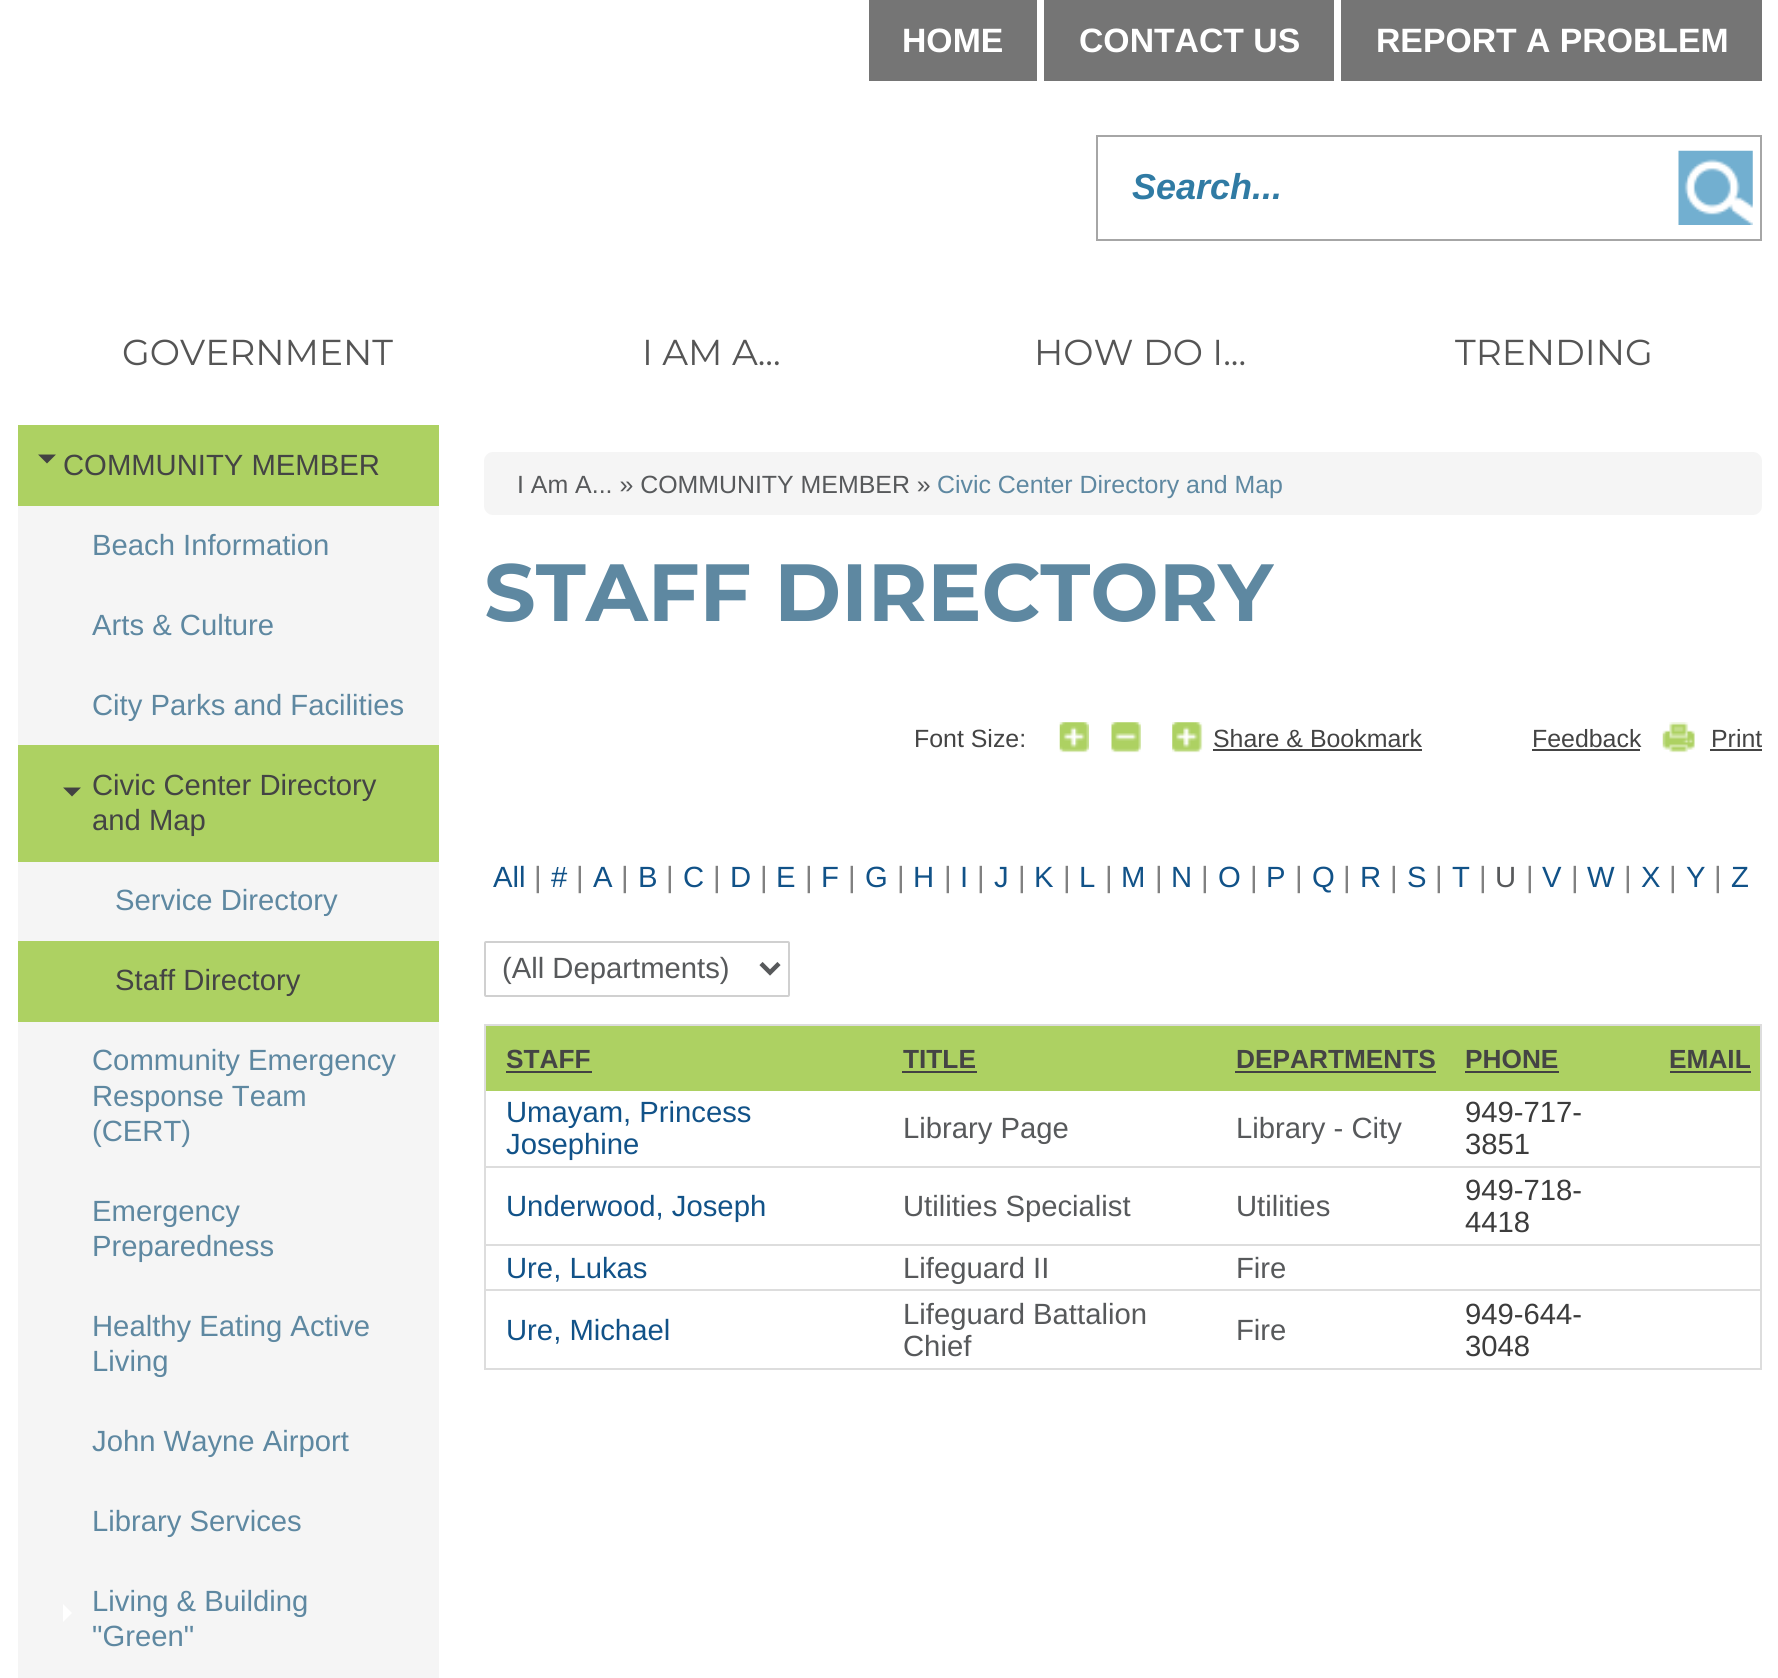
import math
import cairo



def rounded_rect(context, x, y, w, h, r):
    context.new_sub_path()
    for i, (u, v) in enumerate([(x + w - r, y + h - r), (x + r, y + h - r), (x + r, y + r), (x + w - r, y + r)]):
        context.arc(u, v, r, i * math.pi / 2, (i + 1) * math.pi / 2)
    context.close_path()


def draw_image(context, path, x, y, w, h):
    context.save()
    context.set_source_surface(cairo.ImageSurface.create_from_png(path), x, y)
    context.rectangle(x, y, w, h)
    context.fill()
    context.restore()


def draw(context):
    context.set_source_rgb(1, 1, 1)
    context.paint()
    context.set_source_rgb(117 / 255, 117 / 255, 117 / 255)
    context.rectangle(869, 0, 168, 81)
    context.fill()
    context.rectangle(1044, 0, 290, 81)
    context.fill()
    context.rectangle(1341, 0, 421, 81)
    context.fill()
    context.rectangle(1097, 136, 664, 104)
    context.set_source_rgb(166 / 255, 166 / 255, 166 / 255)
    context.stroke()
    draw_image(context, "images/1.png", 1678, 150, 75, 75)
    context.set_source_rgb(173 / 255, 209 / 255, 98 / 255)
    context.rectangle(18, 425, 421, 81)
    context.fill()
    context.set_source_rgb(66 / 255, 66 / 255, 66 / 255)
    context.new_path()
    context.move_to(38, 454.5)
    context.line_to(56, 454.5)
    context.line_to(47, 463.5)
    context.close_path()
    context.fill()
    context.set_source_rgb(245 / 255, 245 / 255, 245 / 255)
    context.rectangle(18, 506, 421, 239)
    context.fill()
    context.set_source_rgb(173 / 255, 209 / 255, 98 / 255)
    context.rectangle(18, 745, 421, 117)
    context.fill()
    context.set_source_rgb(66 / 255, 66 / 255, 66 / 255)
    context.new_path()
    context.move_to(63, 787.5)
    context.line_to(81, 787.5)
    context.line_to(72, 796.5)
    context.close_path()
    context.fill()
    context.set_source_rgb(245 / 255, 245 / 255, 245 / 255)
    context.rectangle(18, 862, 421, 79)
    context.fill()
    context.set_source_rgb(173 / 255, 209 / 255, 98 / 255)
    context.rectangle(18, 941, 421, 81)
    context.fill()
    context.set_source_rgb(245 / 255, 245 / 255, 245 / 255)
    context.rectangle(18, 1022, 421, 656)
    context.fill()
    context.set_source_rgb(1, 1, 1)
    context.new_path()
    context.move_to(63, 1622)
    context.line_to(63, 1604)
    context.line_to(72, 1613)
    context.close_path()
    context.fill()
    context.set_source_rgb(245 / 255, 245 / 255, 245 / 255)
    rounded_rect(context, 484, 452, 1278, 63, 9)
    context.fill()
    draw_image(context, "images/2.png", 1059, 722, 30, 31)
    draw_image(context, "images/3.png", 1111, 722, 30, 31)
    draw_image(context, "images/4.png", 1172, 722, 31, 31)
    context.set_source_rgb(68 / 255, 68 / 255, 68 / 255)
    context.rectangle(1213, 749, 209, 2)
    context.fill()
    context.rectangle(1532, 749, 108, 2)
    context.fill()
    draw_image(context, "images/5.png", 1662, 722, 33, 31)
    context.rectangle(1710, 749, 52, 2)
    context.fill()
    rounded_rect(context, 485, 942, 304, 54, 1)
    context.set_source_rgb(208 / 255, 208 / 255, 208 / 255)
    context.stroke()
    context.new_path()
    context.move_to(761, 963.5)
    context.line_to(770, 972.5)
    context.line_to(779, 963.5)
    context.set_source_rgb(87 / 255, 89 / 255, 91 / 255)
    context.set_line_width(4.5)
    context.stroke()
    context.rectangle(485, 1025, 1276, 344)
    context.set_source_rgb(221 / 255, 221 / 255, 221 / 255)
    context.set_line_width(2)
    context.stroke()
    context.set_source_rgb(173 / 255, 209 / 255, 98 / 255)
    context.rectangle(486, 1026, 1274, 65)
    context.fill()
    context.set_source_rgb(66 / 255, 66 / 255, 66 / 255)
    context.rectangle(506, 1071, 86, 2)
    context.fill()
    context.rectangle(902, 1071, 75, 2)
    context.fill()
    context.rectangle(1235, 1071, 201, 2)
    context.fill()
    context.rectangle(1465, 1071, 94, 2)
    context.fill()
    context.rectangle(1670, 1071, 81, 2)
    context.fill()
    context.set_source_rgb(221 / 255, 221 / 255, 221 / 255)
    context.rectangle(486, 1166, 1274, 2)
    context.fill()
    context.rectangle(486, 1244, 1274, 2)
    context.fill()
    context.rectangle(486, 1289, 1274, 2)
    context.fill()
    context.select_font_face("Liberation Sans", cairo.FontSlant.NORMAL, cairo.FontWeight.BOLD)
    context.set_font_size(33.75)
    context.set_source_rgb(1, 1, 1)
    context.move_to(902, 52)
    context.show_text("HOME")
    context.move_to(1079, 52)
    context.show_text("CONTACT US")
    context.move_to(1376, 52)
    context.show_text("REPORT A PROBLEM")
    context.select_font_face("Liberation Sans", cairo.FontSlant.ITALIC, cairo.FontWeight.BOLD)
    context.set_font_size(36)
    context.set_source_rgb(48 / 255, 123 / 255, 164 / 255)
    context.move_to(1132, 199)
    context.show_text("Search...")
    context.select_font_face("Montserrat")
    context.set_source_rgb(85 / 255, 85 / 255, 85 / 255)
    context.move_to(122, 365)
    context.show_text("GOVERNMENT")
    context.move_to(642, 365)
    context.show_text("I AM A...")
    context.move_to(1034, 365)
    context.show_text("HOW DO I...")
    context.move_to(1455, 365)
    context.show_text("TRENDING")
    context.select_font_face("Liberation Sans")
    context.set_font_size(29.25)
    context.set_source_rgb(68 / 255, 68 / 255, 68 / 255)
    context.move_to(63, 475)
    context.show_text("COMMUNITY MEMBER")
    context.set_source_rgb(94 / 255, 136 / 255, 161 / 255)
    context.move_to(92, 555)
    context.show_text("Beach Information")
    context.move_to(92, 635)
    context.show_text("Arts & Culture")
    context.move_to(92, 715)
    context.show_text("City Parks and Facilities")
    context.set_source_rgb(68 / 255, 68 / 255, 68 / 255)
    context.move_to(92, 795)
    context.show_text("Civic Center Directory")
    context.move_to(92, 830)
    context.show_text("and Map")
    context.set_source_rgb(94 / 255, 136 / 255, 161 / 255)
    context.move_to(115, 910)
    context.show_text("Service Directory")
    context.set_source_rgb(68 / 255, 68 / 255, 68 / 255)
    context.move_to(115, 990)
    context.show_text("Staff Directory")
    context.set_source_rgb(94 / 255, 136 / 255, 161 / 255)
    context.move_to(92, 1070)
    context.show_text("Community Emergency")
    context.move_to(92, 1106)
    context.show_text("Response Team")
    context.move_to(92, 1141)
    context.show_text("(CERT)")
    context.move_to(92, 1221)
    context.show_text("Emergency")
    context.move_to(92, 1256)
    context.show_text("Preparedness")
    context.move_to(92, 1336)
    context.show_text("Healthy Eating Active")
    context.move_to(92, 1371)
    context.show_text("Living")
    context.move_to(92, 1451)
    context.show_text("John Wayne Airport")
    context.move_to(92, 1531)
    context.show_text("Library Services")
    context.move_to(92, 1611)
    context.show_text("Living & Building")
    context.move_to(92, 1646)
    context.show_text("\"Green\"")
    context.set_font_size(24.9)
    context.set_source_rgb(87 / 255, 89 / 255, 91 / 255)
    context.move_to(517, 493)
    context.show_text("I Am A... » COMMUNITY MEMBER »")
    context.set_source_rgb(94 / 255, 136 / 255, 161 / 255)
    context.move_to(937, 493)
    context.show_text("Civic Center Directory and Map")
    context.select_font_face("Montserrat", cairo.FontSlant.NORMAL, cairo.FontWeight.BOLD)
    context.set_font_size(81)
    context.move_to(484, 621)
    context.show_text("STAFF DIRECTORY")
    context.select_font_face("Liberation Sans")
    context.set_font_size(24.9)
    context.set_source_rgb(68 / 255, 68 / 255, 68 / 255)
    context.move_to(914, 747)
    context.show_text("Font Size:")
    context.move_to(1213, 747)
    context.show_text("Share & Bookmark")
    context.move_to(1532, 747)
    context.show_text("Feedback")
    context.move_to(1711, 747)
    context.show_text("Print")
    context.set_font_size(29.25)
    context.set_source_rgb(17 / 255, 82 / 255, 136 / 255)
    context.move_to(493, 887)
    context.show_text("All")
    context.set_source_rgb(128 / 255, 128 / 255, 128 / 255)
    context.move_to(534, 887)
    context.show_text("|")
    context.set_source_rgb(17 / 255, 82 / 255, 136 / 255)
    context.move_to(551, 887)
    context.show_text("#")
    context.set_source_rgb(128 / 255, 128 / 255, 128 / 255)
    context.move_to(576, 887)
    context.show_text("|")
    context.set_source_rgb(17 / 255, 82 / 255, 136 / 255)
    context.move_to(593, 887)
    context.show_text("A")
    context.set_source_rgb(128 / 255, 128 / 255, 128 / 255)
    context.move_to(621, 887)
    context.show_text("|")
    context.set_source_rgb(17 / 255, 82 / 255, 136 / 255)
    context.move_to(638, 887)
    context.show_text("B")
    context.set_source_rgb(128 / 255, 128 / 255, 128 / 255)
    context.move_to(666, 887)
    context.show_text("|")
    context.set_source_rgb(17 / 255, 82 / 255, 136 / 255)
    context.move_to(683, 887)
    context.show_text("C")
    context.set_source_rgb(128 / 255, 128 / 255, 128 / 255)
    context.move_to(713, 887)
    context.show_text("|")
    context.set_source_rgb(17 / 255, 82 / 255, 136 / 255)
    context.move_to(730, 887)
    context.show_text("D")
    context.set_source_rgb(128 / 255, 128 / 255, 128 / 255)
    context.move_to(760, 887)
    context.show_text("|")
    context.set_source_rgb(17 / 255, 82 / 255, 136 / 255)
    context.move_to(776, 887)
    context.show_text("E")
    context.set_source_rgb(128 / 255, 128 / 255, 128 / 255)
    context.move_to(805, 887)
    context.show_text("|")
    context.set_source_rgb(17 / 255, 82 / 255, 136 / 255)
    context.move_to(821, 887)
    context.show_text("F")
    context.set_source_rgb(128 / 255, 128 / 255, 128 / 255)
    context.move_to(848, 887)
    context.show_text("|")
    context.set_source_rgb(17 / 255, 82 / 255, 136 / 255)
    context.move_to(865, 887)
    context.show_text("G")
    context.set_source_rgb(128 / 255, 128 / 255, 128 / 255)
    context.move_to(897, 887)
    context.show_text("|")
    context.set_source_rgb(17 / 255, 82 / 255, 136 / 255)
    context.move_to(913, 887)
    context.show_text("H")
    context.set_source_rgb(128 / 255, 128 / 255, 128 / 255)
    context.move_to(944, 887)
    context.show_text("|")
    context.set_source_rgb(17 / 255, 82 / 255, 136 / 255)
    context.move_to(960, 887)
    context.show_text("I")
    context.set_source_rgb(128 / 255, 128 / 255, 128 / 255)
    context.move_to(977, 887)
    context.show_text("|")
    context.set_source_rgb(17 / 255, 82 / 255, 136 / 255)
    context.move_to(994, 887)
    context.show_text("J")
    context.set_source_rgb(128 / 255, 128 / 255, 128 / 255)
    context.move_to(1018, 887)
    context.show_text("|")
    context.set_source_rgb(17 / 255, 82 / 255, 136 / 255)
    context.move_to(1034, 887)
    context.show_text("K")
    context.set_source_rgb(128 / 255, 128 / 255, 128 / 255)
    context.move_to(1063, 887)
    context.show_text("|")
    context.set_source_rgb(17 / 255, 82 / 255, 136 / 255)
    context.move_to(1079, 887)
    context.show_text("L")
    context.set_source_rgb(128 / 255, 128 / 255, 128 / 255)
    context.move_to(1105, 887)
    context.show_text("|")
    context.set_source_rgb(17 / 255, 82 / 255, 136 / 255)
    context.move_to(1121, 887)
    context.show_text("M")
    context.set_source_rgb(128 / 255, 128 / 255, 128 / 255)
    context.move_to(1155, 887)
    context.show_text("|")
    context.set_source_rgb(17 / 255, 82 / 255, 136 / 255)
    context.move_to(1171, 887)
    context.show_text("N")
    context.set_source_rgb(128 / 255, 128 / 255, 128 / 255)
    context.move_to(1201, 887)
    context.show_text("|")
    context.set_source_rgb(17 / 255, 82 / 255, 136 / 255)
    context.move_to(1218, 887)
    context.show_text("O")
    context.set_source_rgb(128 / 255, 128 / 255, 128 / 255)
    context.move_to(1250, 887)
    context.show_text("|")
    context.set_source_rgb(17 / 255, 82 / 255, 136 / 255)
    context.move_to(1266, 887)
    context.show_text("P")
    context.set_source_rgb(128 / 255, 128 / 255, 128 / 255)
    context.move_to(1295, 887)
    context.show_text("|")
    context.set_source_rgb(17 / 255, 82 / 255, 136 / 255)
    context.move_to(1312, 887)
    context.show_text("Q")
    context.set_source_rgb(128 / 255, 128 / 255, 128 / 255)
    context.move_to(1343, 887)
    context.show_text("|")
    context.set_source_rgb(17 / 255, 82 / 255, 136 / 255)
    context.move_to(1360, 887)
    context.show_text("R")
    context.set_source_rgb(128 / 255, 128 / 255, 128 / 255)
    context.move_to(1390, 887)
    context.show_text("|")
    context.set_source_rgb(17 / 255, 82 / 255, 136 / 255)
    context.move_to(1407, 887)
    context.show_text("S")
    context.set_source_rgb(128 / 255, 128 / 255, 128 / 255)
    context.move_to(1435, 887)
    context.show_text("|")
    context.set_source_rgb(17 / 255, 82 / 255, 136 / 255)
    context.move_to(1452, 887)
    context.show_text("T")
    context.set_source_rgb(128 / 255, 128 / 255, 128 / 255)
    context.move_to(1479, 887)
    context.show_text("|")
    context.set_source_rgb(87 / 255, 89 / 255, 91 / 255)
    context.move_to(1495, 887)
    context.show_text("U")
    context.set_source_rgb(128 / 255, 128 / 255, 128 / 255)
    context.move_to(1526, 887)
    context.show_text("|")
    context.set_source_rgb(17 / 255, 82 / 255, 136 / 255)
    context.move_to(1542, 887)
    context.show_text("V")
    context.set_source_rgb(128 / 255, 128 / 255, 128 / 255)
    context.move_to(1571, 887)
    context.show_text("|")
    context.set_source_rgb(17 / 255, 82 / 255, 136 / 255)
    context.move_to(1587, 887)
    context.show_text("W")
    context.set_source_rgb(128 / 255, 128 / 255, 128 / 255)
    context.move_to(1624, 887)
    context.show_text("|")
    context.set_source_rgb(17 / 255, 82 / 255, 136 / 255)
    context.move_to(1641, 887)
    context.show_text("X")
    context.set_source_rgb(128 / 255, 128 / 255, 128 / 255)
    context.move_to(1669, 887)
    context.show_text("|")
    context.set_source_rgb(17 / 255, 82 / 255, 136 / 255)
    context.move_to(1686, 887)
    context.show_text("Y")
    context.set_source_rgb(128 / 255, 128 / 255, 128 / 255)
    context.move_to(1714, 887)
    context.show_text("|")
    context.set_source_rgb(17 / 255, 82 / 255, 136 / 255)
    context.move_to(1731, 887)
    context.show_text("Z")
    context.set_source_rgb(87 / 255, 89 / 255, 91 / 255)
    context.move_to(502, 978)
    context.show_text("(All Departments)")
    context.select_font_face("Liberation Sans", cairo.FontSlant.NORMAL, cairo.FontWeight.BOLD)
    context.set_font_size(26.25)
    context.set_source_rgb(68 / 255, 68 / 255, 68 / 255)
    context.move_to(506, 1068)
    context.show_text("STAFF")
    context.move_to(903, 1068)
    context.show_text("TITLE")
    context.move_to(1236, 1068)
    context.show_text("DEPARTMENTS")
    context.move_to(1465, 1068)
    context.show_text("PHONE")
    context.move_to(1669, 1068)
    context.show_text("EMAIL")
    context.select_font_face("Liberation Sans")
    context.set_font_size(29.25)
    context.set_source_rgb(17 / 255, 82 / 255, 136 / 255)
    context.move_to(506, 1122)
    context.show_text("Umayam, Princess")
    context.move_to(506, 1154)
    context.show_text("Josephine")
    context.set_source_rgb(87 / 255, 89 / 255, 91 / 255)
    context.move_to(903, 1138)
    context.show_text("Library Page")
    context.move_to(1236, 1138)
    context.show_text("Library - City")
    context.set_source_rgb(60 / 255, 60 / 255, 60 / 255)
    context.move_to(1465, 1122)
    context.show_text("949-717-")
    context.move_to(1465, 1154)
    context.show_text("3851")
    context.set_source_rgb(17 / 255, 82 / 255, 136 / 255)
    context.move_to(506, 1216)
    context.show_text("Underwood, Joseph")
    context.set_source_rgb(87 / 255, 89 / 255, 91 / 255)
    context.move_to(903, 1216)
    context.show_text("Utilities Specialist")
    context.move_to(1236, 1216)
    context.show_text("Utilities")
    context.set_source_rgb(60 / 255, 60 / 255, 60 / 255)
    context.move_to(1465, 1200)
    context.show_text("949-718-")
    context.move_to(1465, 1232)
    context.show_text("4418")
    context.set_source_rgb(17 / 255, 82 / 255, 136 / 255)
    context.move_to(506, 1278)
    context.show_text("Ure, Lukas")
    context.set_source_rgb(87 / 255, 89 / 255, 91 / 255)
    context.move_to(903, 1278)
    context.show_text("Lifeguard II")
    context.move_to(1236, 1278)
    context.show_text("Fire")
    context.set_source_rgb(17 / 255, 82 / 255, 136 / 255)
    context.move_to(506, 1340)
    context.show_text("Ure, Michael")
    context.set_source_rgb(87 / 255, 89 / 255, 91 / 255)
    context.move_to(903, 1324)
    context.show_text("Lifeguard Battalion")
    context.move_to(903, 1356)
    context.show_text("Chief")
    context.move_to(1236, 1340)
    context.show_text("Fire")
    context.set_source_rgb(60 / 255, 60 / 255, 60 / 255)
    context.move_to(1465, 1324)
    context.show_text("949-644-")
    context.move_to(1465, 1356)
    context.show_text("3048")


surface = cairo.ImageSurface(cairo.Format.RGB24, 1778, 1678)
context = cairo.Context(surface)
options = cairo.FontOptions()
options.set_hint_metrics(cairo.HintMetrics.OFF)
options.set_hint_style(cairo.HintStyle.NONE)
context.set_font_options(options)
context.set_miter_limit(4)
draw(context)
surface.write_to_png("out.png")
